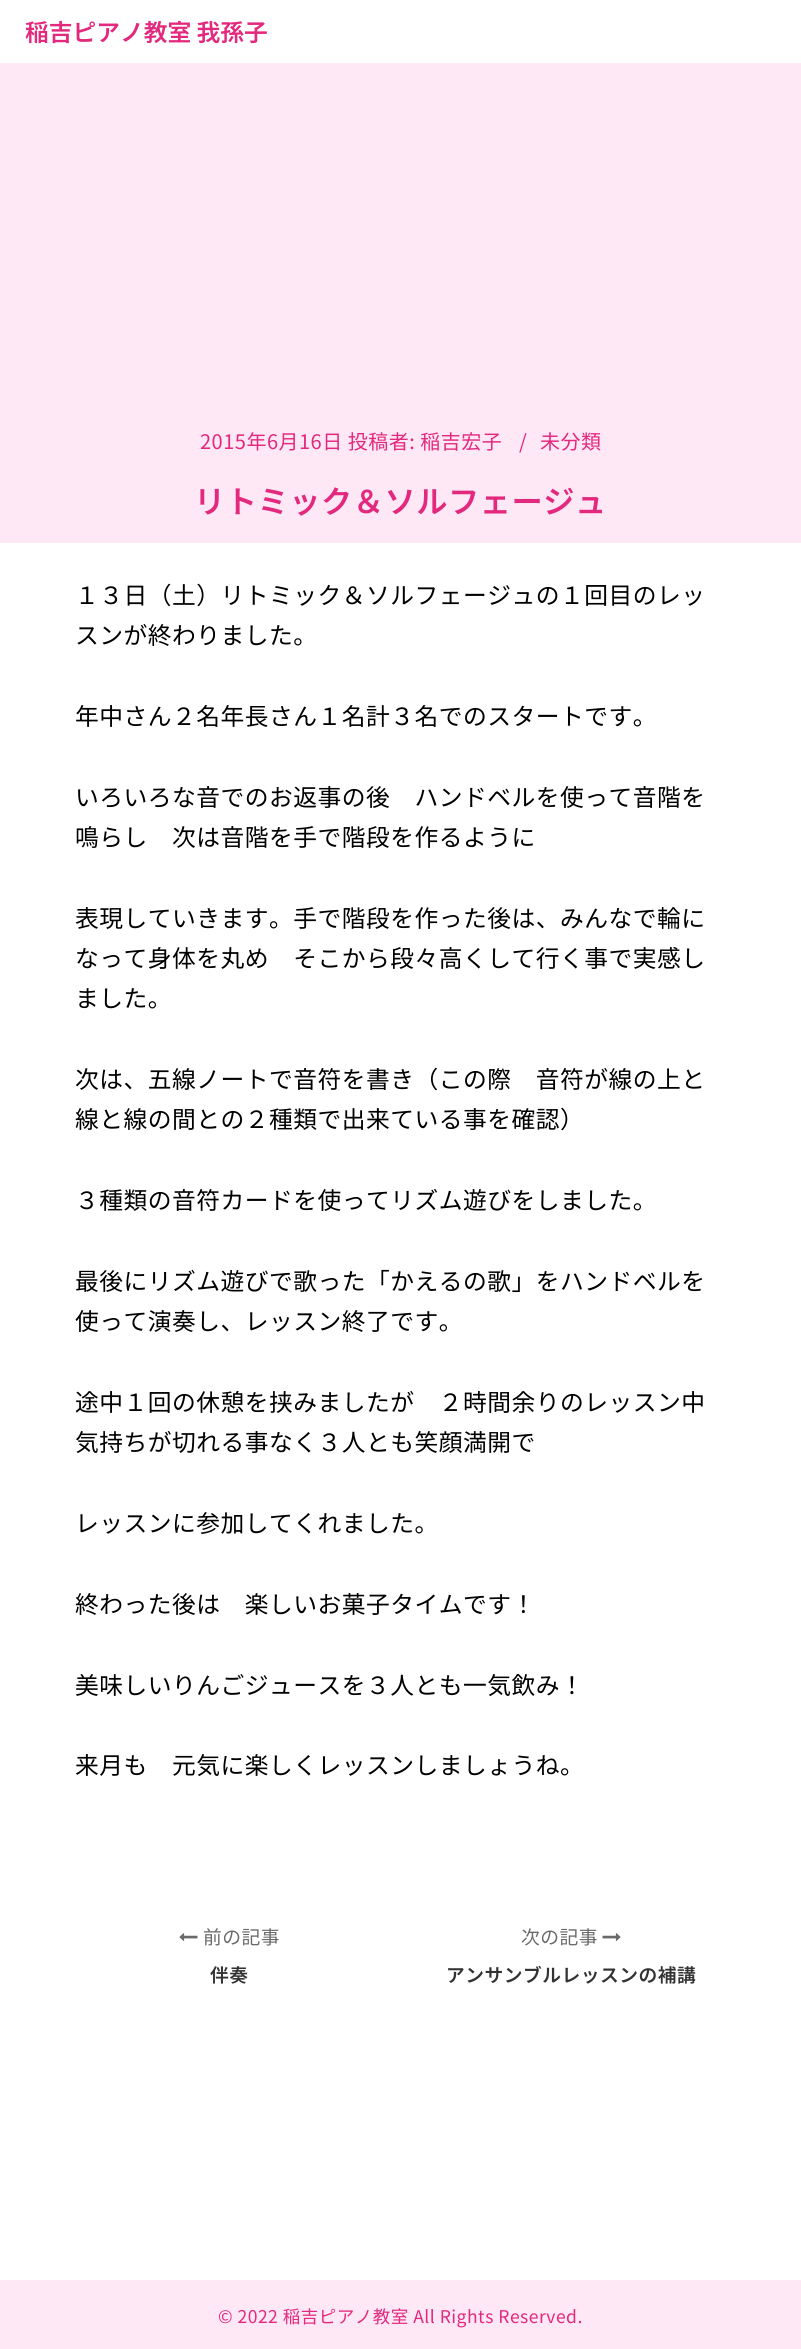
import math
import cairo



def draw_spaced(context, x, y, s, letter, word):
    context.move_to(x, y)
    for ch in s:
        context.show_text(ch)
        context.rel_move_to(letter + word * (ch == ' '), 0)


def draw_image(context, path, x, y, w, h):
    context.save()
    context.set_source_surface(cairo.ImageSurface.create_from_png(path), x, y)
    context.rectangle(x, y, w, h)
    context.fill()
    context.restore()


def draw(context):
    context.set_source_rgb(1, 1, 1)
    context.paint()
    context.set_source_rgb(1, 232 / 255, 246 / 255)
    context.rectangle(0, 63, 801, 480)
    context.fill()
    draw_image(context, "images/1.png", 179, 1933, 19, 8)
    draw_image(context, "images/2.png", 602, 1933, 19, 8)
    context.rectangle(0, 2280, 801, 69)
    context.fill()
    context.select_font_face("Noto Sans JP SemiBold")
    context.set_font_size(23.75)
    context.set_source_rgb(227 / 255, 41 / 255, 125 / 255)
    context.move_to(25, 41)
    context.show_text("稲吉ピアノ教室 我孫子")
    context.select_font_face("Noto Sans JP")
    context.set_font_size(20)
    draw_spaced(context, 200, 449, "2015年6月16日 投稿者: 稲吉宏子", 0.5, 0)
    draw_spaced(context, 519, 449, "/", 0.5, 0)
    draw_spaced(context, 540, 449, "未分類", 0.5, 0)
    context.select_font_face("Noto Sans JP SemiBold")
    context.set_font_size(31.25)
    draw_spaced(context, 194, 513, "リトミック＆ソルフェージュ", 0.5, 0)
    context.select_font_face("Noto Sans JP")
    context.set_font_size(23.75)
    context.set_source_rgb(0, 0, 0)
    draw_spaced(context, 75, 604, "１３日（土）リトミック＆ソルフェージュの１回目のレッ", 0.5, 0)
    draw_spaced(context, 75, 644, "スンが終わりました。", 0.5, 0)
    draw_spaced(context, 75, 725, "年中さん２名年長さん１名計３名でのスタートです。", 0.5, 0)
    draw_spaced(context, 75, 806, "いろいろな音でのお返事の後　ハンドベルを使って音階を", 0.5, 0)
    draw_spaced(context, 75, 846, "鳴らし　次は音階を手で階段を作るように", 0.5, 0)
    draw_spaced(context, 75, 927, "表現していきます。手で階段を作った後は、みんなで輪に", 0.5, 0)
    draw_spaced(context, 75, 967, "なって身体を丸め　そこから段々高くして行く事で実感し", 0.5, 0)
    draw_spaced(context, 75, 1007, "ました。", 0.5, 0)
    draw_spaced(context, 75, 1088, "次は、五線ノートで音符を書き（この際　音符が線の上と", 0.5, 0)
    draw_spaced(context, 75, 1128, "線と線の間との２種類で出来ている事を確認）", 0.5, 0)
    draw_spaced(context, 75, 1209, "３種類の音符カードを使ってリズム遊びをしました。", 0.5, 0)
    draw_spaced(context, 75, 1290, "最後にリズム遊びで歌った「かえるの歌」をハンドベルを", 0.5, 0)
    draw_spaced(context, 75, 1330, "使って演奏し、レッスン終了です。", 0.5, 0)
    draw_spaced(context, 75, 1411, "途中１回の休憩を挟みましたが　２時間余りのレッスン中", 0.5, 0)
    draw_spaced(context, 75, 1451, "気持ちが切れる事なく３人とも笑顔満開で", 0.5, 0)
    draw_spaced(context, 75, 1532, "レッスンに参加してくれました。", 0.5, 0)
    draw_spaced(context, 75, 1613, "終わった後は　楽しいお菓子タイムです！", 0.5, 0)
    draw_spaced(context, 75, 1694, "美味しいりんごジュースを３人とも一気飲み！", 0.5, 0)
    draw_spaced(context, 75, 1774, "来月も　元気に楽しくレッスンしましょうね。", 0.5, 0)
    context.set_font_size(18.75)
    context.set_source_rgb(106 / 255, 106 / 255, 106 / 255)
    draw_spaced(context, 203, 1944, "前の記事", 0.5, 0)
    context.select_font_face("Noto Sans JP SemiBold")
    context.set_source_rgb(51 / 255, 51 / 255, 51 / 255)
    draw_spaced(context, 210, 1982, "伴奏", 0.5, 0)
    context.select_font_face("Noto Sans JP")
    context.set_source_rgb(106 / 255, 106 / 255, 106 / 255)
    draw_spaced(context, 521, 1944, "次の記事", 0.5, 0)
    context.select_font_face("Noto Sans JP SemiBold")
    context.set_source_rgb(51 / 255, 51 / 255, 51 / 255)
    draw_spaced(context, 446, 1982, "アンサンブルレッスンの補講", 0.5, 0)
    context.select_font_face("Noto Sans JP")
    context.set_font_size(17.5)
    context.set_source_rgb(227 / 255, 41 / 255, 125 / 255)
    draw_spaced(context, 218, 2323, "© 2022 稲吉ピアノ教室 All Rights Reserved.", 0.5, 0)


surface = cairo.ImageSurface(cairo.Format.RGB24, 801, 2349)
context = cairo.Context(surface)
options = cairo.FontOptions()
options.set_hint_metrics(cairo.HintMetrics.OFF)
options.set_hint_style(cairo.HintStyle.NONE)
context.set_font_options(options)
context.set_miter_limit(4)
draw(context)
surface.write_to_png("out.png")
